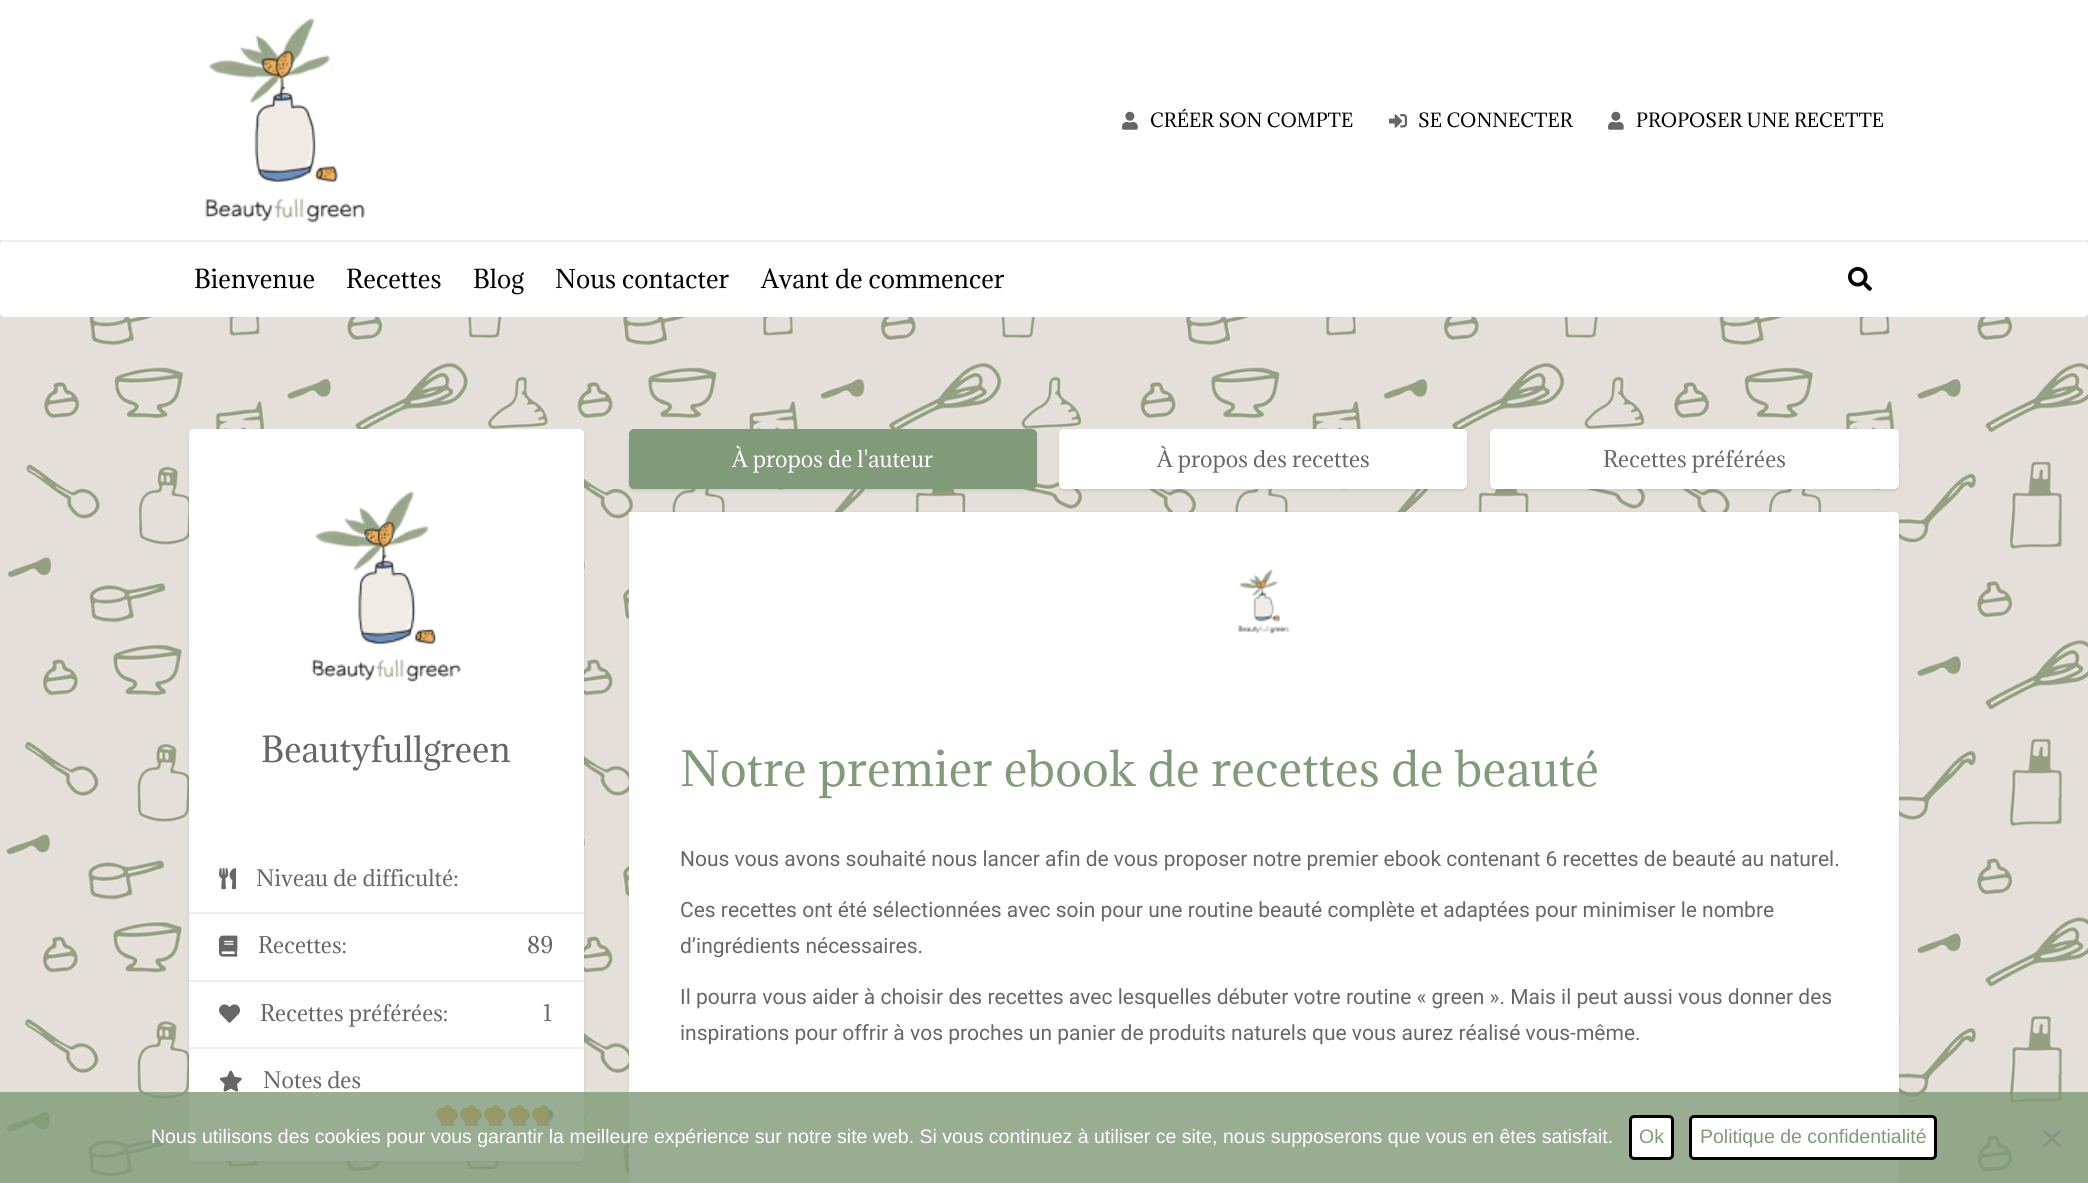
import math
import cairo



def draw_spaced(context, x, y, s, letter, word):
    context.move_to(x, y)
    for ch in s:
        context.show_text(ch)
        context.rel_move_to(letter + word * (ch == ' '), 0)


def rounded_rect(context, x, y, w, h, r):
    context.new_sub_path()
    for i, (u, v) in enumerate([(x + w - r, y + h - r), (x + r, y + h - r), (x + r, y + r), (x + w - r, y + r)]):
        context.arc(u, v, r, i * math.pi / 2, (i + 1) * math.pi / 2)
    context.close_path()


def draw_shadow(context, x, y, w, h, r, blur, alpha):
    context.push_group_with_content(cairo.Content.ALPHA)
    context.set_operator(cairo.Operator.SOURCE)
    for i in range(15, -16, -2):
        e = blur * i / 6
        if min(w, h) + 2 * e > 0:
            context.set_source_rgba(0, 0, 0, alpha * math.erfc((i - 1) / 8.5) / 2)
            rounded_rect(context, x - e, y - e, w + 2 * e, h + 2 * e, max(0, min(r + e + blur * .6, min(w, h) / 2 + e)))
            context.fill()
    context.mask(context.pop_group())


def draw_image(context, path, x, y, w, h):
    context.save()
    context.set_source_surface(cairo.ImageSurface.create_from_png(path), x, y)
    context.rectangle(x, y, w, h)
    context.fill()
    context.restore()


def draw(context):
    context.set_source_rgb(1, 1, 1)
    context.paint()
    draw_image(context, "images/1.png", 0, 240, 2088, 943)
    draw_image(context, "images/2.png", 205, 17, 160, 206)
    draw_image(context, "images/3.png", 1122, 111, 16, 19)
    draw_image(context, "images/4.png", 1389, 114, 18, 14)
    draw_image(context, "images/3.png", 1608, 111, 16, 19)
    context.set_source_rgb(1, 1, 1)
    rounded_rect(context, 0, 240, 2088, 77, 5)
    context.fill()
    context.set_source_rgb(238 / 255, 238 / 255, 238 / 255)
    context.rectangle(3, 240, 2084, 2)
    context.fill()
    draw_image(context, "images/5.png", 1848, 267, 24, 24)
    context.set_source_rgb(0, 0, 0)
    draw_shadow(context, 189, 431, 395, 732, 5, 1.5, 0.1)
    context.set_source_rgb(1, 1, 1)
    rounded_rect(context, 189, 429, 395, 732, 5)
    context.fill()
    draw_image(context, "images/6.png", 311, 490, 150, 192)
    context.set_source_rgb(238 / 255, 238 / 255, 238 / 255)
    context.rectangle(189, 912, 395, 2)
    context.fill()
    draw_image(context, "images/7.png", 219, 868, 18, 22)
    context.rectangle(189, 980, 395, 2)
    context.fill()
    draw_image(context, "images/8.png", 219, 935, 19, 22)
    context.rectangle(189, 1047, 395, 2)
    context.fill()
    draw_image(context, "images/9.png", 219, 1004, 21, 19)
    draw_image(context, "images/10.png", 219, 1070, 23, 22)
    draw_image(context, "images/11.png", 436, 1105, 22, 22)
    draw_image(context, "images/12.png", 436, 1105, 22, 22)
    draw_image(context, "images/11.png", 460, 1105, 22, 22)
    draw_image(context, "images/12.png", 460, 1105, 22, 22)
    draw_image(context, "images/11.png", 484, 1105, 22, 22)
    draw_image(context, "images/12.png", 484, 1105, 22, 22)
    draw_image(context, "images/11.png", 508, 1105, 22, 22)
    draw_image(context, "images/12.png", 508, 1105, 22, 22)
    draw_image(context, "images/11.png", 532, 1105, 22, 22)
    draw_image(context, "images/13.png", 532, 1105, 16, 22)
    context.set_source_rgb(0, 0, 0)
    draw_shadow(context, 629, 431, 408, 60, 5, 1.5, 0.1)
    context.set_source_rgb(129 / 255, 155 / 255, 122 / 255)
    rounded_rect(context, 629, 429, 408, 60, 5)
    context.fill()
    context.set_source_rgb(0, 0, 0)
    draw_shadow(context, 1059, 431, 408, 60, 5, 1.5, 0.1)
    context.set_source_rgb(1, 1, 1)
    rounded_rect(context, 1059, 429, 408, 60, 5)
    context.fill()
    context.set_source_rgb(0, 0, 0)
    draw_shadow(context, 1490, 431, 409, 60, 5, 1.5, 0.1)
    context.set_source_rgb(1, 1, 1)
    rounded_rect(context, 1490, 429, 409, 60, 5)
    context.fill()
    context.new_path()
    context.move_to(629, 512)
    context.line_to(1894, 512)
    context.curve_to(1897, 512, 1899, 514, 1899, 517)
    context.line_to(1899, 1183)
    context.curve_to(1899, 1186, 1897, 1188, 1894, 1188)
    context.line_to(634, 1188)
    context.curve_to(631, 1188, 629, 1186, 629, 1183)
    context.close_path()
    context.fill()
    context.set_source_rgb(0, 0, 0)
    draw_shadow(context, 629, 513, 1270, 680, 5, 1.5, 0.1)
    context.set_source_rgb(1, 1, 1)
    rounded_rect(context, 629, 512, 1270, 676, 5)
    context.fill()
    draw_image(context, "images/14.png", 1237, 569, 52, 65)
    context.set_source_rgba(129 / 255, 155 / 255, 122 / 255, 0.82)
    context.rectangle(0, 1092, 2088, 91)
    context.fill()
    context.set_source_rgb(1, 1, 1)
    rounded_rect(context, 1630.5, 1116.5, 42, 42, 3.5)
    context.fill_preserve()
    context.set_source_rgb(0, 0, 0)
    context.set_line_width(3)
    context.stroke()
    context.set_source_rgb(1, 1, 1)
    rounded_rect(context, 1690.5, 1116.5, 245, 42, 3.5)
    context.fill_preserve()
    context.set_source_rgb(0, 0, 0)
    context.stroke()
    context.set_source_rgb(138 / 255, 148 / 255, 134 / 255)
    context.new_path()
    context.move_to(2059, 1129.5)
    context.line_to(2061, 1131.5)
    context.line_to(2045, 1147.5)
    context.line_to(2043, 1145.5)
    context.close_path()
    context.fill()
    context.new_path()
    context.move_to(2043, 1131.5)
    context.line_to(2045, 1129.5)
    context.line_to(2061, 1145.5)
    context.line_to(2059, 1147.5)
    context.close_path()
    context.fill()
    context.select_font_face("Adamina")
    context.set_font_size(18)
    context.set_source_rgb(0, 0, 0)
    context.move_to(1150, 127)
    context.show_text("CRÉER SON COMPTE")
    context.move_to(1418, 127)
    context.show_text("SE CONNECTER")
    context.move_to(1636, 127)
    context.show_text("PROPOSER UNE RECETTE")
    context.set_font_size(24)
    context.move_to(194, 288)
    context.show_text("Bienvenue")
    context.move_to(346, 288)
    context.show_text("Recettes")
    context.move_to(473, 288)
    context.show_text("Blog")
    context.move_to(555, 288)
    context.show_text("Nous contacter")
    context.move_to(761, 288)
    context.show_text("Avant de commencer")
    context.set_font_size(33)
    context.set_source_rgb(103 / 255, 103 / 255, 103 / 255)
    context.move_to(261, 762)
    context.show_text("Beautyfullgreen")
    context.set_font_size(21)
    context.move_to(256, 886)
    context.show_text("Niveau de difficulté:")
    context.move_to(258, 953)
    context.show_text("Recettes:")
    context.move_to(527, 953)
    context.show_text("89")
    context.move_to(260, 1021)
    context.show_text("Recettes préférées:")
    context.move_to(543, 1021)
    context.show_text("1")
    context.move_to(263, 1088)
    context.show_text("Notes des")
    context.set_source_rgb(1, 1, 1)
    context.move_to(732, 467)
    context.show_text("À propos de l'auteur")
    context.set_source_rgb(103 / 255, 103 / 255, 103 / 255)
    context.move_to(1157, 467)
    context.show_text("À propos des recettes")
    context.move_to(1603, 467)
    context.show_text("Recettes préférées")
    context.set_font_size(45)
    context.set_source_rgb(129 / 255, 155 / 255, 122 / 255)
    draw_spaced(context, 680, 786, "Notre premier ebook de recettes de beauté", 0.3, 0)
    context.select_font_face("Roboto")
    context.set_font_size(21)
    context.set_source_rgb(103 / 255, 103 / 255, 103 / 255)
    context.move_to(680, 866)
    context.show_text("Nous vous avons souhaité nous lancer afin de vous proposer notre premier ebook contenant 6 recettes de beauté au naturel.")
    context.move_to(680, 917)
    context.show_text("Ces recettes ont été sélectionnées avec soin pour une routine beauté complète et adaptées pour minimiser le nombre")
    context.move_to(680, 953)
    context.show_text("d’ingrédients nécessaires.")
    context.move_to(680, 1004)
    context.show_text("Il pourra vous aider à choisir des recettes avec lesquelles débuter votre routine « green ». Mais il peut aussi vous donner des")
    context.move_to(680, 1040)
    context.show_text("inspirations pour offrir à vos proches un panier de produits naturels que vous aurez réalisé vous-même.")
    context.select_font_face("Liberation Sans")
    context.set_font_size(19.5)
    context.set_source_rgb(1, 1, 1)
    context.move_to(151, 1143)
    context.show_text("Nous utilisons des cookies pour vous garantir la meilleure expérience sur notre site web. Si vous continuez à utiliser ce site, nous supposerons que vous en êtes satisfait.")
    context.set_source_rgb(129 / 255, 155 / 255, 122 / 255)
    context.move_to(1639, 1143)
    context.show_text("Ok")
    context.move_to(1700, 1143)
    context.show_text("Politique de confidentialité")


surface = cairo.ImageSurface(cairo.Format.RGB24, 2088, 1183)
context = cairo.Context(surface)
options = cairo.FontOptions()
options.set_hint_metrics(cairo.HintMetrics.OFF)
options.set_hint_style(cairo.HintStyle.NONE)
context.set_font_options(options)
context.set_miter_limit(4)
draw(context)
surface.write_to_png("out.png")
